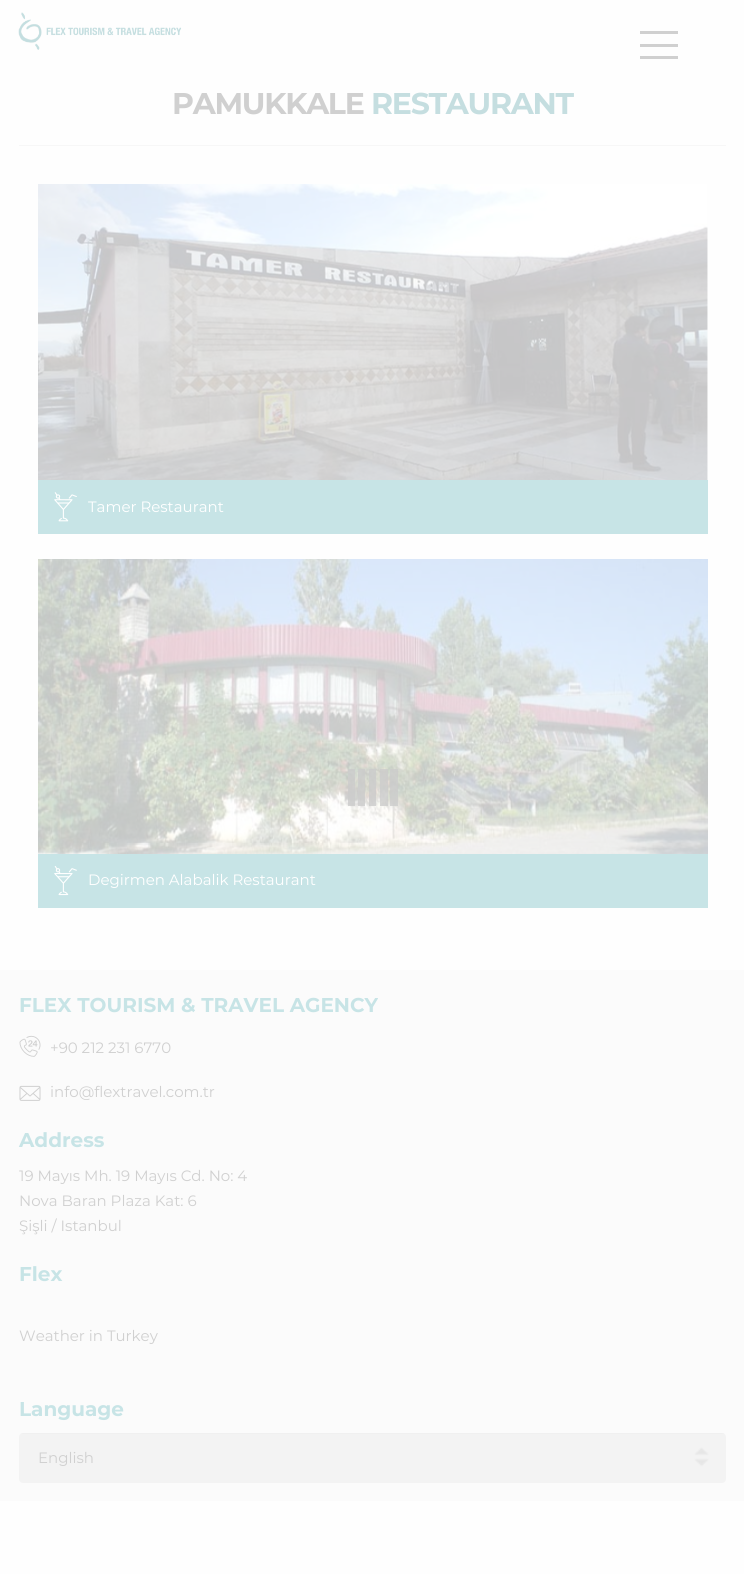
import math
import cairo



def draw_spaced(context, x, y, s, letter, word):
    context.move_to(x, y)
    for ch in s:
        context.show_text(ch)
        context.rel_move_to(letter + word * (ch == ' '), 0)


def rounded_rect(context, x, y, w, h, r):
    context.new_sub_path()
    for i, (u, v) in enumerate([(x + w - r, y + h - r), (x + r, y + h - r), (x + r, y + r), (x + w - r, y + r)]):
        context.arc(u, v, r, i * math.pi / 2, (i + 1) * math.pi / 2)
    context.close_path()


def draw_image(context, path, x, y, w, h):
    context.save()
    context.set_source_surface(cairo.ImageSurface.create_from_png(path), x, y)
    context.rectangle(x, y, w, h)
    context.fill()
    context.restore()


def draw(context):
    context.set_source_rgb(254 / 255, 254 / 255, 254 / 255)
    context.paint()
    draw_image(context, "images/1.png", 18, 12, 164, 38)
    context.set_source_rgb(208 / 255, 208 / 255, 208 / 255)
    context.rectangle(640, 44, 38, 3)
    context.fill()
    context.rectangle(640, 31, 38, 3)
    context.fill()
    context.rectangle(640, 56, 38, 3)
    context.fill()
    context.set_source_rgb(247 / 255, 247 / 255, 247 / 255)
    context.rectangle(19, 145, 707, 1)
    context.fill()
    draw_image(context, "images/2.png", 38, 184, 670, 296)
    context.set_source_rgb(199 / 255, 228 / 255, 230 / 255)
    context.rectangle(38, 480, 670, 54)
    context.fill()
    draw_image(context, "images/3.png", 54, 492, 23, 30)
    draw_image(context, "images/4.png", 38, 559, 670, 295)
    context.rectangle(38, 854, 670, 54)
    context.fill()
    draw_image(context, "images/5.png", 54, 866, 23, 30)
    context.set_source_rgba(204 / 255, 204 / 255, 204 / 255, 0.77)
    context.rectangle(348, 769, 7, 37)
    context.fill()
    context.rectangle(358, 769, 7, 37)
    context.fill()
    context.rectangle(369, 769, 7, 37)
    context.fill()
    context.rectangle(380, 769, 8, 37)
    context.fill()
    context.rectangle(390, 769, 8, 37)
    context.fill()
    context.set_source_rgb(251 / 255, 251 / 255, 251 / 255)
    context.rectangle(0, 970, 744, 531)
    context.fill()
    draw_image(context, "images/6.png", 19, 1035, 22, 22)
    draw_image(context, "images/7.png", 19, 1085, 22, 16)
    context.set_source_rgb(243 / 255, 243 / 255, 243 / 255)
    rounded_rect(context, 19, 1433, 707, 50, 4)
    context.fill()
    draw_image(context, "images/8.png", 694, 1447, 15, 20)
    context.save()
    rounded_rect(context, 19, 1433, 707, 50, 4)
    context.clip()
    context.set_source_rgba(196 / 255, 196 / 255, 196 / 255, 0.07)
    context.rectangle(19, 1433, 707, 1)
    context.fill()
    context.restore()
    context.select_font_face("Montserrat", cairo.FontSlant.NORMAL, cairo.FontWeight.BOLD)
    context.set_font_size(30)
    context.set_source_rgb(208 / 255, 208 / 255, 208 / 255)
    draw_spaced(context, 172, 114, "PAMUKKALE", -1.25, 0)
    context.set_source_rgb(197 / 255, 222 / 255, 224 / 255)
    draw_spaced(context, 371, 114, "RESTAURANT", -1.25, 0)
    context.select_font_face("Montserrat")
    context.set_font_size(15)
    context.set_source_rgb(1, 1, 1)
    context.move_to(88, 512)
    context.show_text("Tamer Restaurant")
    context.move_to(88, 885)
    context.show_text("Degirmen Alabalik Restaurant")
    context.select_font_face("Montserrat", cairo.FontSlant.NORMAL, cairo.FontWeight.BOLD)
    context.set_font_size(20)
    context.set_source_rgb(199 / 255, 228 / 255, 230 / 255)
    context.move_to(19, 1012)
    context.show_text("FLEX TOURISM & TRAVEL AGENCY")
    context.select_font_face("Montserrat")
    context.set_font_size(15)
    context.set_source_rgb(208 / 255, 208 / 255, 208 / 255)
    context.move_to(50, 1053)
    context.show_text("+90 212 231 6770")
    context.move_to(50, 1097)
    context.show_text("info@flextravel.com.tr")
    context.select_font_face("Montserrat", cairo.FontSlant.NORMAL, cairo.FontWeight.BOLD)
    context.set_font_size(20)
    context.set_source_rgb(199 / 255, 228 / 255, 230 / 255)
    context.move_to(19, 1147)
    context.show_text("Address")
    context.select_font_face("Montserrat")
    context.set_font_size(15)
    context.set_source_rgb(208 / 255, 208 / 255, 208 / 255)
    context.move_to(19, 1181)
    context.show_text("19 Mayıs Mh. 19 Mayıs Cd. No: 4")
    context.move_to(19, 1206)
    context.show_text("Nova Baran Plaza Kat: 6")
    context.move_to(19, 1231)
    context.show_text("Şişli / Istanbul")
    context.select_font_face("Montserrat", cairo.FontSlant.NORMAL, cairo.FontWeight.BOLD)
    context.set_font_size(20)
    context.set_source_rgb(199 / 255, 228 / 255, 230 / 255)
    context.move_to(19, 1281)
    context.show_text("Flex")
    context.select_font_face("Montserrat")
    context.set_font_size(15)
    context.set_source_rgb(208 / 255, 208 / 255, 208 / 255)
    context.move_to(19, 1341)
    context.show_text("Weather in Turkey")
    context.select_font_face("Montserrat", cairo.FontSlant.NORMAL, cairo.FontWeight.BOLD)
    context.set_font_size(20)
    context.set_source_rgb(199 / 255, 228 / 255, 230 / 255)
    context.move_to(19, 1416)
    context.show_text("Language")
    context.select_font_face("Montserrat")
    context.set_font_size(15)
    context.set_source_rgb(208 / 255, 208 / 255, 208 / 255)
    context.move_to(38, 1463)
    context.show_text("English")


surface = cairo.ImageSurface(cairo.Format.RGB24, 744, 1574)
context = cairo.Context(surface)
options = cairo.FontOptions()
options.set_hint_metrics(cairo.HintMetrics.OFF)
options.set_hint_style(cairo.HintStyle.NONE)
context.set_font_options(options)
context.set_miter_limit(4)
draw(context)
surface.write_to_png("out.png")
